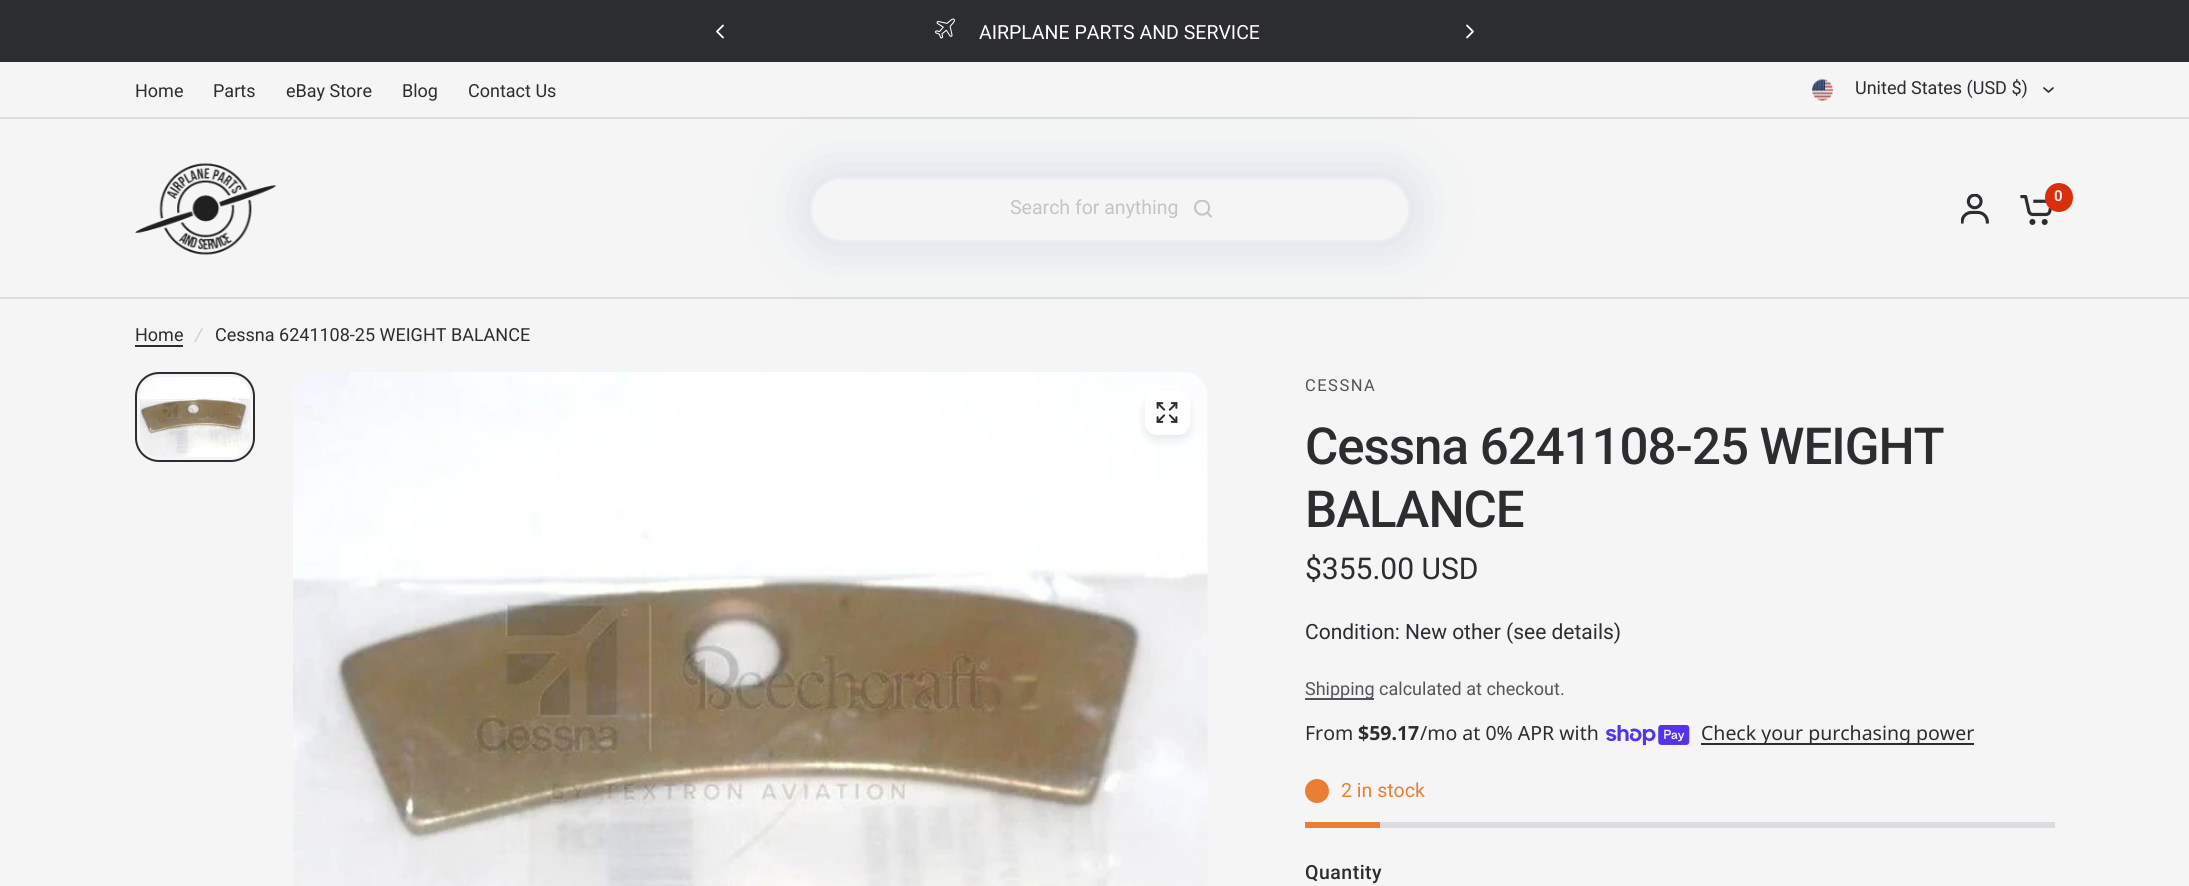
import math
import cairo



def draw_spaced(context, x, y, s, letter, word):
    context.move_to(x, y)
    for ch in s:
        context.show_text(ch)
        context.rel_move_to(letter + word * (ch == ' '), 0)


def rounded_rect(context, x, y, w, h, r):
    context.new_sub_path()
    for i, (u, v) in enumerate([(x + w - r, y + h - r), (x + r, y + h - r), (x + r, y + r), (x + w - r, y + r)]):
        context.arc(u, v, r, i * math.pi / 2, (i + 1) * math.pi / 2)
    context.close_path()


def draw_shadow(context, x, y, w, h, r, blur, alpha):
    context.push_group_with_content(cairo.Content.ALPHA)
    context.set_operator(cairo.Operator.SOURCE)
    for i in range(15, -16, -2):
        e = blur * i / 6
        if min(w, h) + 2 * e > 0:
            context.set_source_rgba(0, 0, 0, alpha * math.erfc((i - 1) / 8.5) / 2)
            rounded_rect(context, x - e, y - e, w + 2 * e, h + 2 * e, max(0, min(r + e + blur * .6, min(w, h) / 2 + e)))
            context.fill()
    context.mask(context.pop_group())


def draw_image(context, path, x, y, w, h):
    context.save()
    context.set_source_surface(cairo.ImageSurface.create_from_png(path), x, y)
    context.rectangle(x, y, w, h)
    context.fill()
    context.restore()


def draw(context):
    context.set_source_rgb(44 / 255, 45 / 255, 46 / 255)
    context.paint()
    context.new_path()
    context.move_to(723, 25.5)
    context.line_to(717, 31.5)
    context.line_to(723, 37.5)
    context.set_source_rgb(1, 1, 1)
    context.set_line_width(1.8)
    context.set_line_cap(cairo.LineCap.ROUND)
    context.set_line_join(cairo.LineJoin.ROUND)
    context.stroke()
    draw_image(context, "images/1.png", 935, 18, 20, 21)
    context.new_path()
    context.move_to(1467, 25.5)
    context.line_to(1473, 31.5)
    context.line_to(1467, 37.5)
    context.stroke()
    context.set_source_rgb(245 / 255, 245 / 255, 245 / 255)
    context.rectangle(0, 119, 2189, 178)
    context.fill()
    context.rectangle(0, 299, 2189, 587)
    context.fill()
    context.save()
    context.set_fill_rule(cairo.FillRule.EVEN_ODD)
    context.new_path()
    context.move_to(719, 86)
    context.line_to(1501, 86)
    context.line_to(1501, 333)
    context.line_to(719, 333)
    context.close_path()
    context.move_to(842.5, 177)
    context.line_to(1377.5, 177)
    context.curve_to(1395.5, 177, 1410, 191.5, 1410, 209.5)
    context.curve_to(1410, 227.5, 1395.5, 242, 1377.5, 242)
    context.line_to(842.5, 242)
    context.curve_to(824.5, 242, 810, 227.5, 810, 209.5)
    context.curve_to(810, 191.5, 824.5, 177, 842.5, 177)
    context.close_path()
    context.clip()
    context.set_source_rgb(190 / 255, 206 / 255, 223 / 255)
    draw_shadow(context, 810, 177, 600, 65, 32.5, 30, 0.56)
    context.restore()
    context.rectangle(0, 62, 2189, 55)
    context.fill()
    context.set_source_rgb(218 / 255, 220 / 255, 224 / 255)
    context.rectangle(0, 117, 2189, 2)
    context.fill()
    draw_image(context, "images/2.png", 1812, 79, 21, 22)
    context.new_path()
    context.move_to(2053, 88)
    context.line_to(2048.5, 92)
    context.line_to(2044, 88)
    context.set_source_rgb(44 / 255, 45 / 255, 46 / 255)
    context.set_line_width(1.7)
    context.stroke()
    draw_image(context, "images/3.png", 135, 163, 141, 92)
    draw_image(context, "images/4.png", 1961, 194, 28, 30)
    draw_image(context, "images/5.png", 2020, 195, 32, 30)
    context.set_source_rgb(218 / 255, 47 / 255, 12 / 255)
    rounded_rect(context, 2045, 183, 28, 29, 14)
    context.fill()
    rounded_rect(context, 811, 178, 598, 63, 31.5)
    context.set_source_rgba(190 / 255, 206 / 255, 223 / 255, 0.21)
    context.set_line_width(2)
    context.set_line_cap(cairo.LineCap.BUTT)
    context.set_line_join(cairo.LineJoin.MITER)
    context.stroke()
    draw_image(context, "images/6.png", 1194, 200, 18, 18)
    context.set_source_rgb(218 / 255, 220 / 255, 224 / 255)
    context.rectangle(0, 297, 2189, 2)
    context.fill()
    context.set_source_rgb(44 / 255, 45 / 255, 46 / 255)
    context.rectangle(135, 345, 48, 2)
    context.fill()
    draw_image(context, "images/7.png", 135, 372, 120, 90)
    rounded_rect(context, 137.5, 374.5, 115, 85, 21.5)
    context.set_source_rgb(245 / 255, 245 / 255, 245 / 255)
    context.set_line_width(5)
    context.stroke()
    rounded_rect(context, 136, 373, 118, 88, 23)
    context.set_source_rgb(44 / 255, 45 / 255, 46 / 255)
    context.set_line_width(2)
    context.stroke()
    draw_image(context, "images/8.png", 293, 372, 915, 514)
    context.set_source_rgb(0, 0, 0)
    draw_shadow(context, 1145, 396, 45, 45, 12, 4.5, 0.08)
    context.set_source_rgb(1, 1, 1)
    rounded_rect(context, 1145, 390, 45, 45, 12)
    context.fill()
    draw_image(context, "images/9.png", 1156, 402, 22, 21)
    context.set_source_rgb(84 / 255, 85 / 255, 86 / 255)
    context.rectangle(1305, 698, 69, 2)
    context.fill()
    draw_image(context, "images/10.png", 1606, 725, 84, 21)
    context.set_source_rgb(44 / 255, 45 / 255, 46 / 255)
    context.rectangle(1701, 743, 273, 2)
    context.fill()
    context.set_source_rgb(233 / 255, 127 / 255, 50 / 255)
    context.arc(1317, 791, 12, 0, 2 * math.pi)
    context.fill()
    context.set_source_rgb(218 / 255, 220 / 255, 224 / 255)
    context.rectangle(1380, 822, 675, 6)
    context.fill()
    context.set_source_rgb(233 / 255, 127 / 255, 50 / 255)
    context.rectangle(1305, 822, 75, 6)
    context.fill()
    context.select_font_face("Roboto")
    context.set_font_size(19.5)
    context.set_source_rgb(1, 1, 1)
    context.move_to(979, 39)
    context.show_text("AIRPLANE PARTS AND SERVICE")
    context.set_font_size(18)
    context.set_source_rgb(44 / 255, 45 / 255, 46 / 255)
    context.move_to(135, 97)
    context.show_text("Home")
    context.move_to(213, 97)
    context.show_text("Parts")
    context.move_to(286, 97)
    context.show_text("eBay Store")
    context.move_to(402, 97)
    context.show_text("Blog")
    context.move_to(468, 97)
    context.show_text("Contact Us")
    context.move_to(1855, 94)
    context.show_text("United States (USD $)")
    context.select_font_face("Roboto SemiBold")
    context.set_font_size(15)
    context.set_source_rgb(245 / 255, 245 / 255, 245 / 255)
    context.move_to(2054, 201)
    context.show_text("0")
    context.select_font_face("Roboto")
    context.set_font_size(19.5)
    context.set_source_rgb(194 / 255, 196 / 255, 200 / 255)
    context.move_to(1010, 214)
    context.show_text("Search for anything")
    context.set_font_size(18)
    context.set_source_rgb(44 / 255, 45 / 255, 46 / 255)
    context.move_to(135, 341)
    context.show_text("Home")
    context.select_font_face("Roboto", cairo.FontSlant.ITALIC)
    context.set_source_rgb(205 / 255, 205 / 255, 205 / 255)
    context.move_to(195, 341)
    context.show_text("/")
    context.select_font_face("Roboto")
    context.set_source_rgb(44 / 255, 45 / 255, 46 / 255)
    context.move_to(215, 341)
    context.show_text("Cessna 6241108-25 WEIGHT BALANCE")
    context.set_font_size(16.5)
    context.set_source_rgb(84 / 255, 85 / 255, 86 / 255)
    draw_spaced(context, 1305, 391, "CESSNA", 1.5, 0)
    context.select_font_face("Roboto Medium")
    context.set_font_size(51)
    context.set_source_rgb(44 / 255, 45 / 255, 46 / 255)
    draw_spaced(context, 1305, 464, "Cessna 6241108-25 WEIGHT", -1, 0)
    draw_spaced(context, 1305, 527, "BALANCE", -1, 0)
    context.select_font_face("Roboto")
    context.set_font_size(30)
    context.move_to(1305, 579)
    context.show_text("$355.00 USD")
    context.set_font_size(21)
    context.move_to(1305, 639)
    context.show_text("Condition: New other (see details)")
    context.set_font_size(18)
    context.set_source_rgb(84 / 255, 85 / 255, 86 / 255)
    context.move_to(1305, 695)
    context.show_text("Shipping calculated at checkout.")
    context.select_font_face("Noto Sans")
    context.set_font_size(19.5)
    context.set_source_rgb(44 / 255, 45 / 255, 46 / 255)
    context.move_to(1305, 740)
    context.show_text("From")
    context.select_font_face("Noto Sans", cairo.FontSlant.NORMAL, cairo.FontWeight.BOLD)
    context.move_to(1358, 740)
    context.show_text("$59.17")
    context.select_font_face("Noto Sans")
    context.move_to(1420, 740)
    context.show_text("/mo at 0% APR with")
    context.move_to(1701, 740)
    context.show_text("Check your purchasing power")
    context.select_font_face("Roboto")
    context.set_source_rgb(233 / 255, 127 / 255, 50 / 255)
    context.move_to(1341, 797)
    context.show_text("2 in stock")
    context.select_font_face("Roboto Medium")
    context.set_source_rgb(44 / 255, 45 / 255, 46 / 255)
    draw_spaced(context, 1305, 879, "Quantity", 0.5, 0)


surface = cairo.ImageSurface(cairo.Format.RGB24, 2189, 886)
context = cairo.Context(surface)
options = cairo.FontOptions()
options.set_hint_metrics(cairo.HintMetrics.OFF)
options.set_hint_style(cairo.HintStyle.NONE)
context.set_font_options(options)
context.set_miter_limit(4)
draw(context)
surface.write_to_png("out.png")
